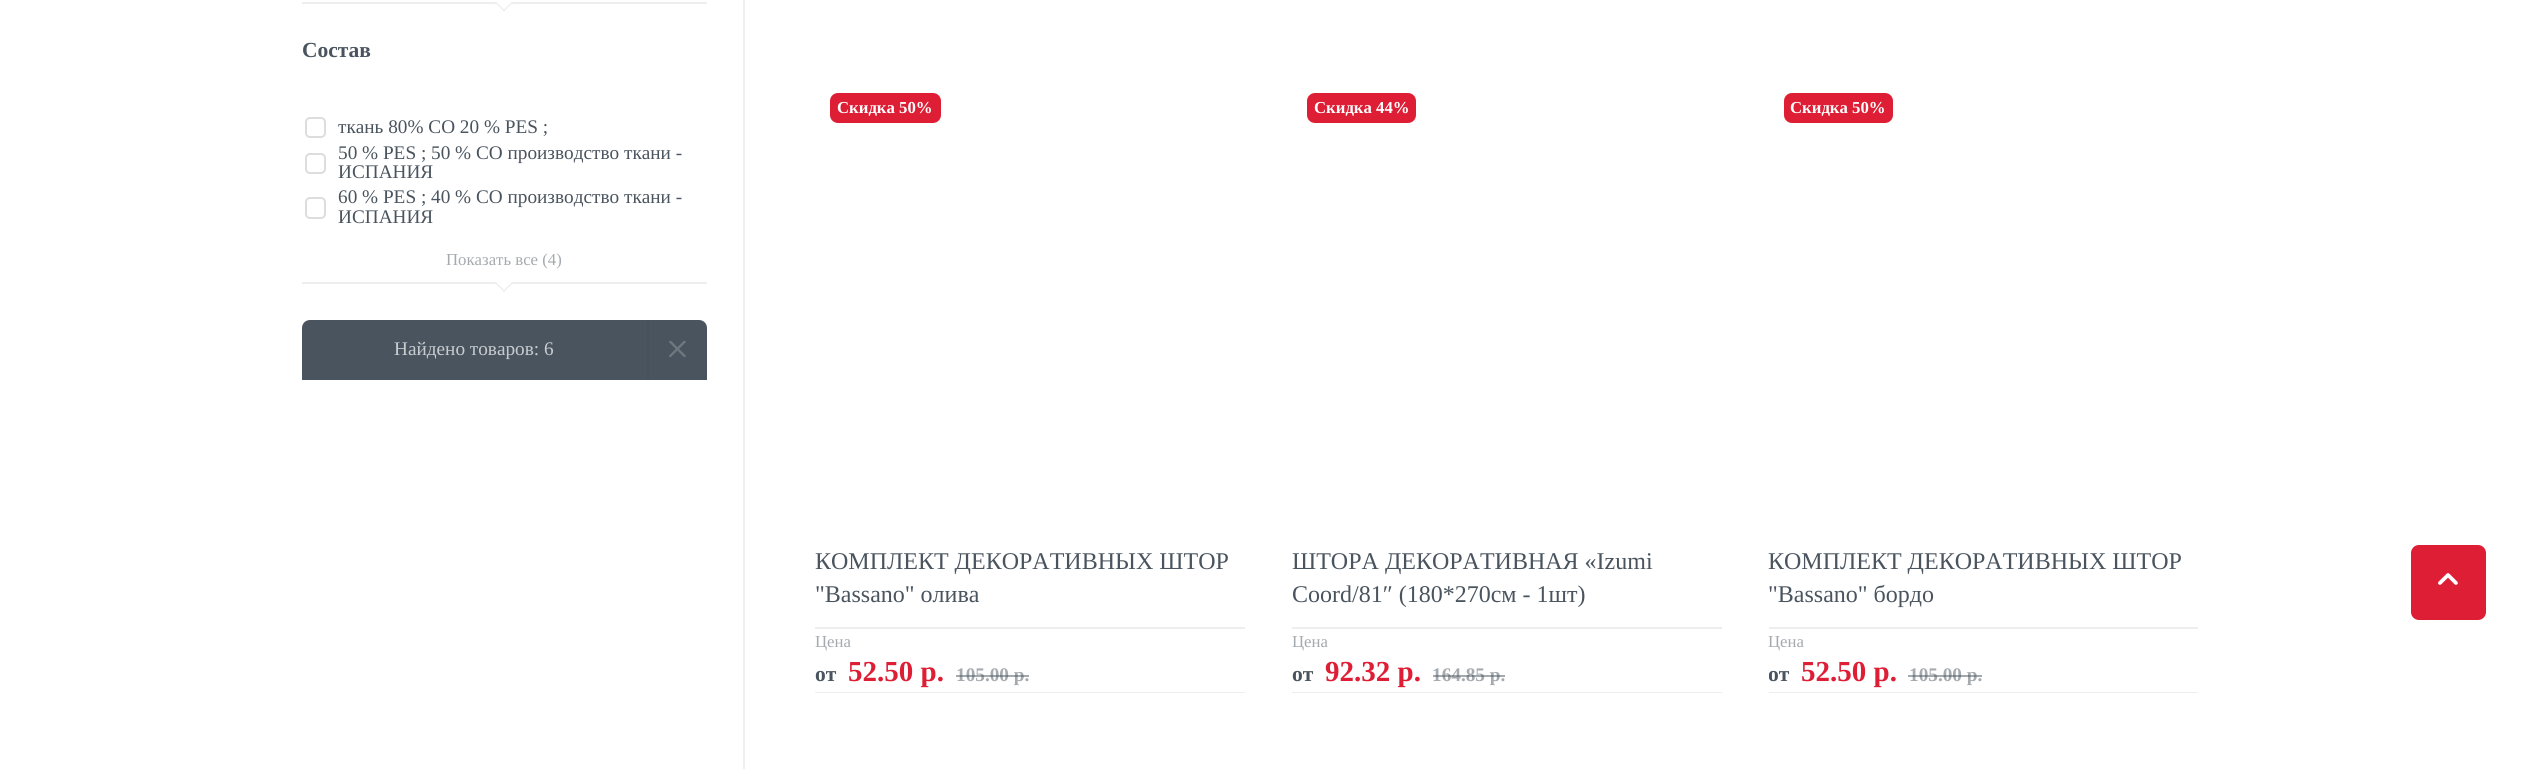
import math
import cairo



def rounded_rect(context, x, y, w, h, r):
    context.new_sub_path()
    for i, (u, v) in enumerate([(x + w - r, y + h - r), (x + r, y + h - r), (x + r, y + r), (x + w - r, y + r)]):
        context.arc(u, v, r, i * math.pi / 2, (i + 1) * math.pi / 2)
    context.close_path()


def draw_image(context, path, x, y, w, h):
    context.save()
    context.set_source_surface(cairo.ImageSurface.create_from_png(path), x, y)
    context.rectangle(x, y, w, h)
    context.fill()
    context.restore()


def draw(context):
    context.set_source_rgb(1, 1, 1)
    context.paint()
    context.set_source_rgb(237 / 255, 238 / 255, 239 / 255)
    context.rectangle(302, 2, 405, 2)
    context.fill()
    context.set_source_rgb(1, 1, 1)
    context.new_path()
    context.move_to(504, -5.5)
    context.line_to(512.5, 3)
    context.line_to(504, 11.5)
    context.line_to(495.5, 3)
    context.close_path()
    context.fill()
    context.set_source_rgb(237 / 255, 238 / 255, 239 / 255)
    context.new_path()
    context.move_to(511.5, 2)
    context.line_to(512.5, 3)
    context.line_to(504, 11.5)
    context.line_to(503, 10.5)
    context.close_path()
    context.fill()
    context.new_path()
    context.move_to(496.5, 2)
    context.line_to(505, 10.5)
    context.line_to(504, 11.5)
    context.line_to(495.5, 3)
    context.close_path()
    context.fill()
    rounded_rect(context, 306, 118, 19, 19, 4)
    context.set_source_rgb(219 / 255, 221 / 255, 223 / 255)
    context.stroke()
    rounded_rect(context, 306, 154, 19, 19, 4)
    context.stroke()
    rounded_rect(context, 306, 198, 19, 20, 4)
    context.stroke()
    context.set_source_rgb(237 / 255, 238 / 255, 239 / 255)
    context.rectangle(302, 282, 405, 2)
    context.fill()
    context.set_source_rgb(1, 1, 1)
    context.new_path()
    context.move_to(504, 275)
    context.line_to(512.5, 283.5)
    context.line_to(504, 292)
    context.line_to(495.5, 283.5)
    context.close_path()
    context.fill()
    context.set_source_rgb(237 / 255, 238 / 255, 239 / 255)
    context.new_path()
    context.move_to(511.5, 282.5)
    context.line_to(512.5, 283.5)
    context.line_to(504, 292)
    context.line_to(503, 291)
    context.close_path()
    context.fill()
    context.new_path()
    context.move_to(496.5, 282.5)
    context.line_to(505, 291)
    context.line_to(504, 292)
    context.line_to(495.5, 283.5)
    context.close_path()
    context.fill()
    context.set_source_rgb(74 / 255, 84 / 255, 94 / 255)
    context.new_path()
    context.move_to(310, 320)
    context.line_to(699, 320)
    context.curve_to(703.5, 320, 707, 323.5, 707, 328)
    context.line_to(707, 380)
    context.line_to(302, 380)
    context.line_to(302, 328)
    context.curve_to(302, 323.5, 305.5, 320, 310, 320)
    context.close_path()
    context.fill()
    context.set_source_rgb(71 / 255, 81 / 255, 90 / 255)
    context.rectangle(647, 320, 2, 60)
    context.fill()
    draw_image(context, "images/1.png", 669, 341, 17, 16)
    context.set_source_rgb(237 / 255, 238 / 255, 239 / 255)
    context.rectangle(743, 0, 2, 769)
    context.fill()
    context.set_source_rgb(221 / 255, 30 / 255, 53 / 255)
    rounded_rect(context, 830, 93, 111, 30, 8)
    context.fill()
    context.set_source_rgb(237 / 255, 238 / 255, 239 / 255)
    context.rectangle(815, 627, 430, 2)
    context.fill()
    context.rectangle(815, 692, 430, 1)
    context.fill()
    context.set_source_rgb(221 / 255, 30 / 255, 53 / 255)
    rounded_rect(context, 1307, 93, 109, 30, 8)
    context.fill()
    context.set_source_rgb(237 / 255, 238 / 255, 239 / 255)
    context.rectangle(1292, 627, 430, 2)
    context.fill()
    context.rectangle(1292, 692, 430, 1)
    context.fill()
    context.set_source_rgb(221 / 255, 30 / 255, 53 / 255)
    rounded_rect(context, 1784, 93, 109, 30, 8)
    context.fill()
    context.set_source_rgb(237 / 255, 238 / 255, 239 / 255)
    context.rectangle(1769, 627, 429, 2)
    context.fill()
    context.rectangle(1769, 692, 429, 1)
    context.fill()
    context.set_source_rgb(221 / 255, 30 / 255, 53 / 255)
    rounded_rect(context, 2411, 545, 75, 75, 8)
    context.fill()
    draw_image(context, "images/2.png", 2438, 573, 20, 12)
    context.select_font_face("Liberation Serif", cairo.FontSlant.NORMAL, cairo.FontWeight.BOLD)
    context.set_font_size(21.5)
    context.set_source_rgb(74 / 255, 84 / 255, 94 / 255)
    context.move_to(302, 57)
    context.show_text("Состав")
    context.select_font_face("Liberation Serif")
    context.set_font_size(19.25)
    context.move_to(338, 133)
    context.show_text("ткань 80% CO 20 % PES ;")
    context.move_to(338, 159)
    context.show_text("50 % PES ; 50 % CO производство ткани -")
    context.move_to(338, 178)
    context.show_text("ИСПАНИЯ")
    context.move_to(338, 203)
    context.show_text("60 % PES ; 40 % CO производство ткани -")
    context.move_to(338, 223)
    context.show_text("ИСПАНИЯ")
    context.set_font_size(16.75)
    context.set_source_rgb(165 / 255, 170 / 255, 175 / 255)
    context.move_to(446, 265)
    context.show_text("Показать все (4)")
    context.set_font_size(19.25)
    context.set_source_rgb(201 / 255, 204 / 255, 207 / 255)
    context.move_to(394, 355)
    context.show_text("Найдено товаров: 6")
    context.select_font_face("Liberation Serif", cairo.FontSlant.NORMAL, cairo.FontWeight.BOLD)
    context.set_font_size(16.75)
    context.set_source_rgb(1, 1, 1)
    context.move_to(837, 113)
    context.show_text("Скидка 50%")
    context.select_font_face("Liberation Serif")
    context.set_font_size(24)
    context.set_source_rgb(74 / 255, 84 / 255, 94 / 255)
    context.move_to(815, 569)
    context.show_text("КОМПЛЕКТ ДЕКОРАТИВНЫХ ШТОР")
    context.move_to(815, 602)
    context.show_text("\"Bassano\" олива")
    context.set_font_size(16.75)
    context.set_source_rgb(165 / 255, 170 / 255, 175 / 255)
    context.move_to(815, 647)
    context.show_text("Цена")
    context.select_font_face("Liberation Serif", cairo.FontSlant.NORMAL, cairo.FontWeight.BOLD)
    context.set_font_size(21.5)
    context.set_source_rgb(74 / 255, 84 / 255, 94 / 255)
    context.move_to(815, 681)
    context.show_text("от")
    context.set_font_size(29)
    context.set_source_rgb(221 / 255, 30 / 255, 53 / 255)
    context.move_to(848, 681)
    context.show_text("52.50 р.")
    context.set_font_size(19.25)
    context.set_source_rgb(165 / 255, 170 / 255, 175 / 255)
    context.move_to(956, 681)
    context.show_text("105.00 р.")
    context.set_source_rgba(74 / 255, 84 / 255, 94 / 255, 0.5)
    context.rectangle(956, 675, 73, 2)
    context.fill()
    context.set_font_size(16.75)
    context.set_source_rgb(1, 1, 1)
    context.move_to(1314, 113)
    context.show_text("Скидка 44%")
    context.select_font_face("Liberation Serif")
    context.set_font_size(24)
    context.set_source_rgb(74 / 255, 84 / 255, 94 / 255)
    context.move_to(1292, 569)
    context.show_text("ШТОРА ДЕКОРАТИВНАЯ «Izumi")
    context.move_to(1292, 602)
    context.show_text("Coord/81″ (180*270см - 1шт)")
    context.set_font_size(16.75)
    context.set_source_rgb(165 / 255, 170 / 255, 175 / 255)
    context.move_to(1292, 647)
    context.show_text("Цена")
    context.select_font_face("Liberation Serif", cairo.FontSlant.NORMAL, cairo.FontWeight.BOLD)
    context.set_font_size(21.5)
    context.set_source_rgb(74 / 255, 84 / 255, 94 / 255)
    context.move_to(1292, 681)
    context.show_text("от")
    context.set_font_size(29)
    context.set_source_rgb(221 / 255, 30 / 255, 53 / 255)
    context.move_to(1325, 681)
    context.show_text("92.32 р.")
    context.set_font_size(19.25)
    context.set_source_rgb(165 / 255, 170 / 255, 175 / 255)
    context.move_to(1432, 681)
    context.show_text("164.85 р.")
    context.set_source_rgba(74 / 255, 84 / 255, 94 / 255, 0.5)
    context.rectangle(1433, 675, 72, 2)
    context.fill()
    context.set_font_size(16.75)
    context.set_source_rgb(1, 1, 1)
    context.move_to(1790, 113)
    context.show_text("Скидка 50%")
    context.select_font_face("Liberation Serif")
    context.set_font_size(24)
    context.set_source_rgb(74 / 255, 84 / 255, 94 / 255)
    context.move_to(1768, 569)
    context.show_text("КОМПЛЕКТ ДЕКОРАТИВНЫХ ШТОР")
    context.move_to(1768, 602)
    context.show_text("\"Bassano\" бордо")
    context.set_font_size(16.75)
    context.set_source_rgb(165 / 255, 170 / 255, 175 / 255)
    context.move_to(1768, 647)
    context.show_text("Цена")
    context.save()
    context.rectangle(1769, 545, 429, 148)
    context.clip()
    context.select_font_face("Liberation Serif", cairo.FontSlant.NORMAL, cairo.FontWeight.BOLD)
    context.set_font_size(21.5)
    context.set_source_rgb(74 / 255, 84 / 255, 94 / 255)
    context.move_to(1768, 681)
    context.show_text("от")
    context.restore()
    context.select_font_face("Liberation Serif", cairo.FontSlant.NORMAL, cairo.FontWeight.BOLD)
    context.set_font_size(29)
    context.set_source_rgb(221 / 255, 30 / 255, 53 / 255)
    context.move_to(1801, 681)
    context.show_text("52.50 р.")
    context.set_font_size(19.25)
    context.set_source_rgb(165 / 255, 170 / 255, 175 / 255)
    context.move_to(1909, 681)
    context.show_text("105.00 р.")
    context.set_source_rgba(74 / 255, 84 / 255, 94 / 255, 0.5)
    context.rectangle(1908, 675, 74, 2)
    context.fill()


surface = cairo.ImageSurface(cairo.Format.RGB24, 2522, 769)
context = cairo.Context(surface)
options = cairo.FontOptions()
options.set_hint_metrics(cairo.HintMetrics.OFF)
options.set_hint_style(cairo.HintStyle.NONE)
context.set_font_options(options)
context.set_miter_limit(4)
draw(context)
surface.write_to_png("out.png")
